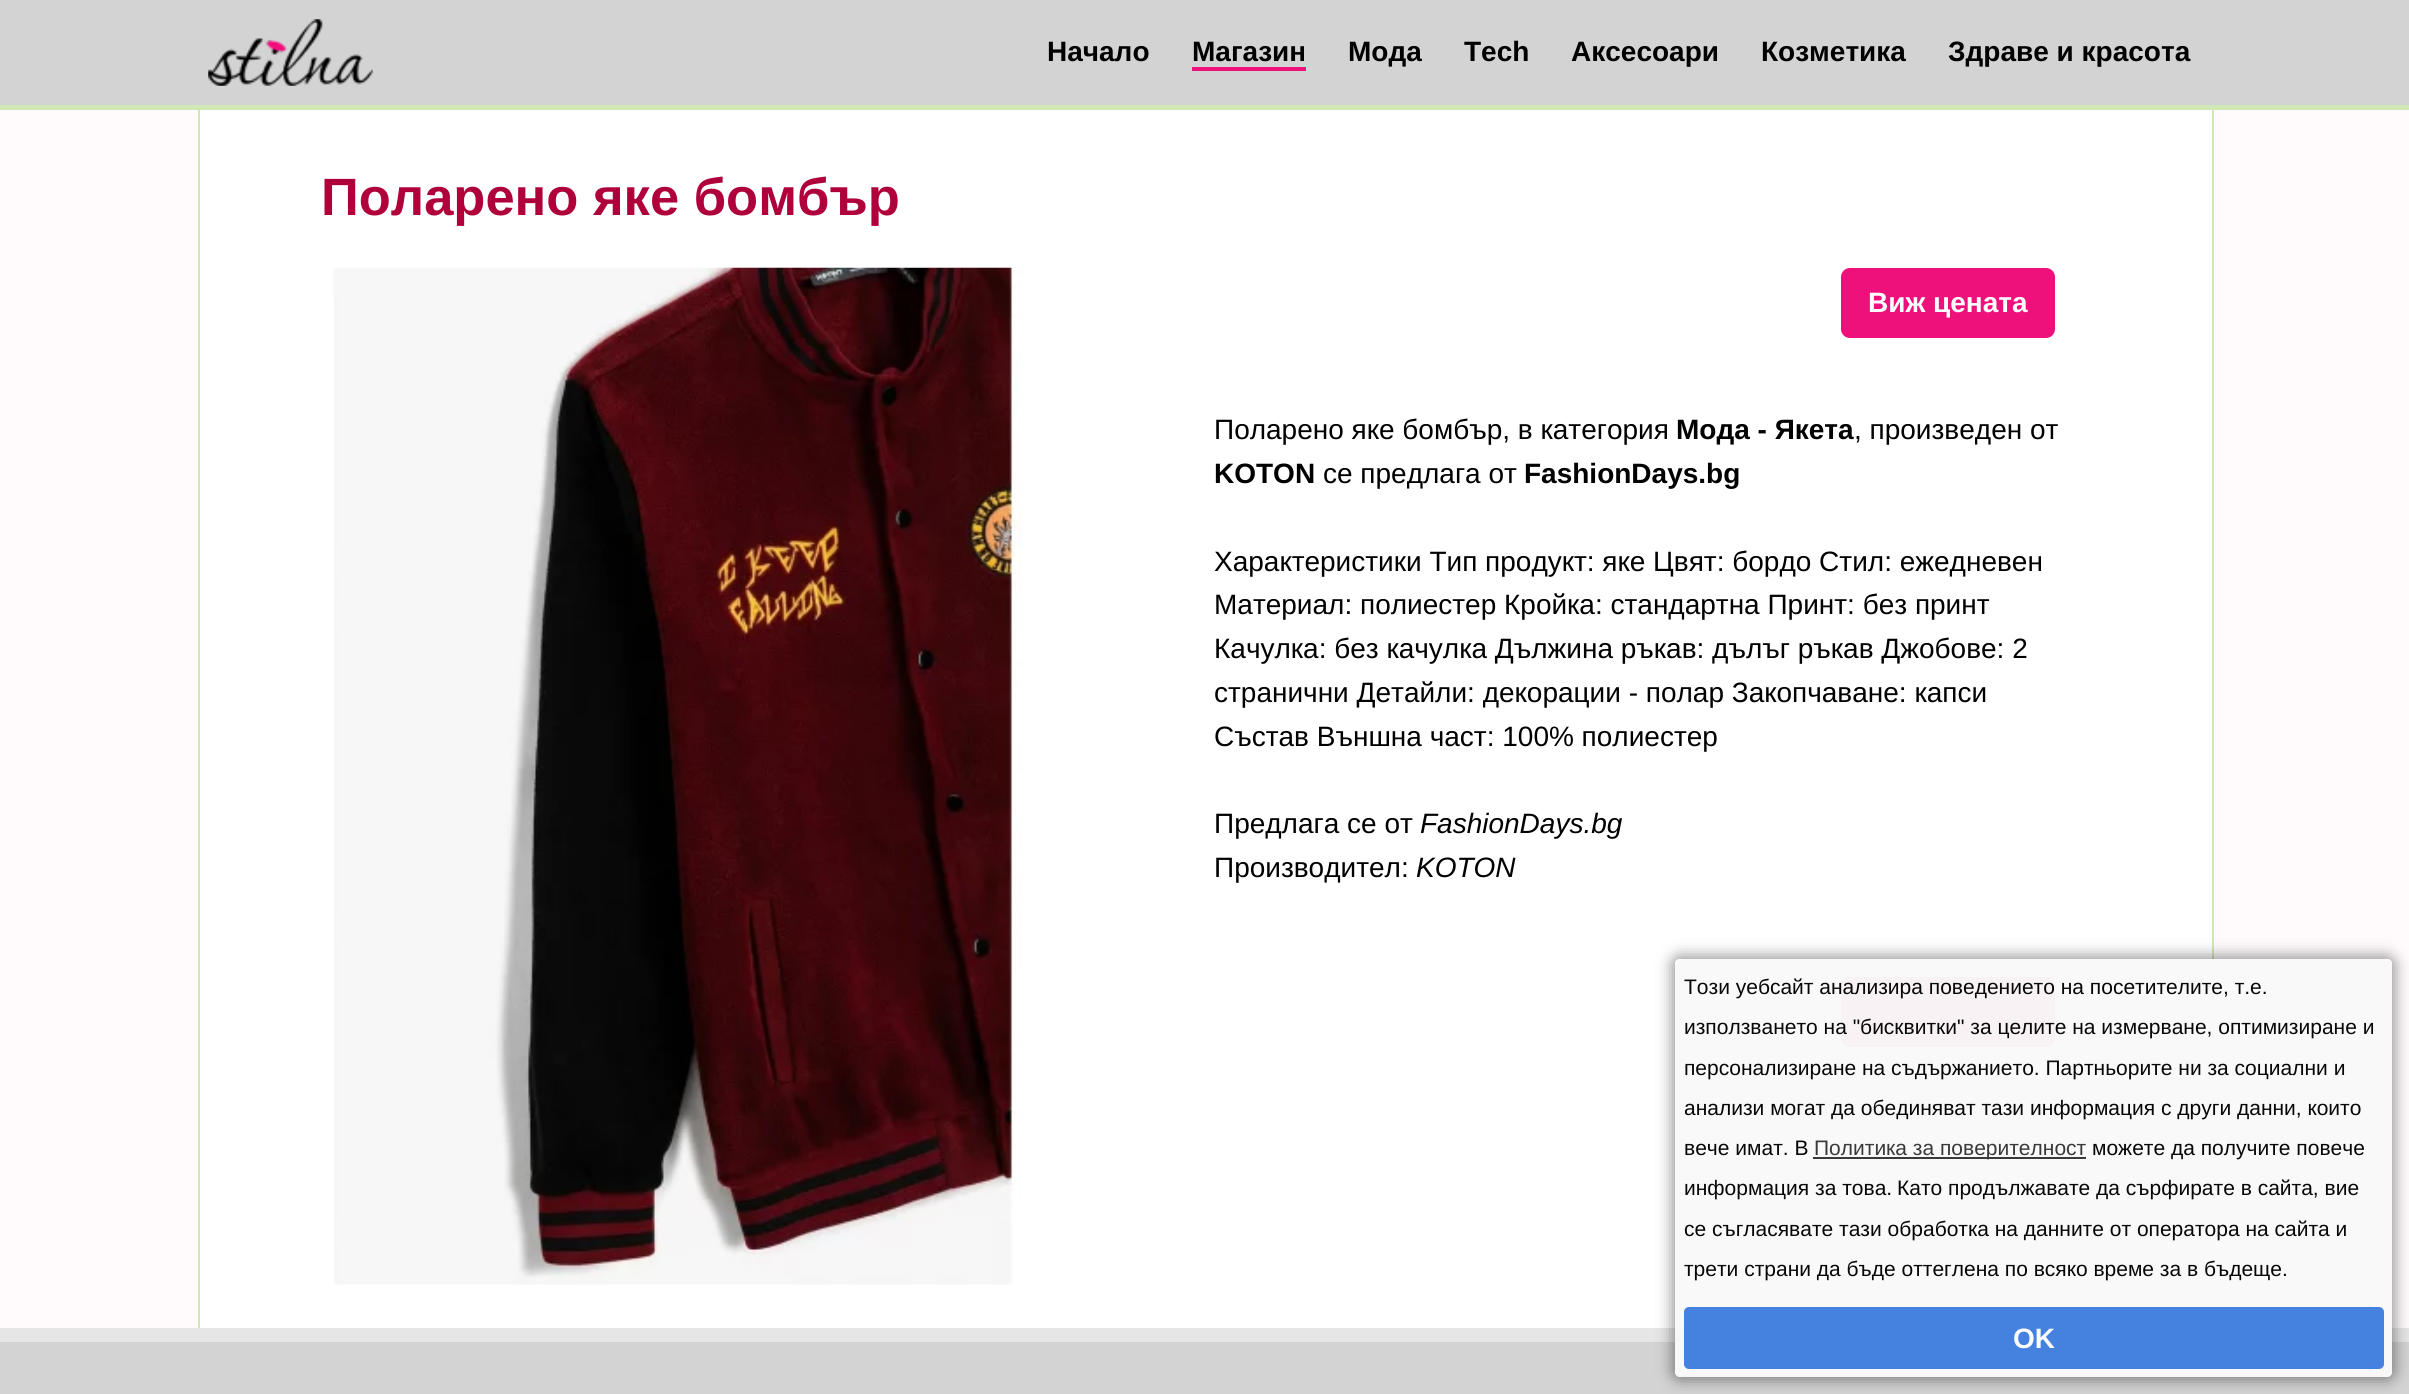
import math
import cairo



def rounded_rect(context, x, y, w, h, r):
    context.new_sub_path()
    for i, (u, v) in enumerate([(x + w - r, y + h - r), (x + r, y + h - r), (x + r, y + r), (x + w - r, y + r)]):
        context.arc(u, v, r, i * math.pi / 2, (i + 1) * math.pi / 2)
    context.close_path()


def draw_shadow(context, x, y, w, h, r, blur, alpha):
    context.push_group_with_content(cairo.Content.ALPHA)
    context.set_operator(cairo.Operator.SOURCE)
    for i in range(15, -16, -2):
        e = blur * i / 6
        if min(w, h) + 2 * e > 0:
            context.set_source_rgba(0, 0, 0, alpha * math.erfc((i - 1) / 8.5) / 2)
            rounded_rect(context, x - e, y - e, w + 2 * e, h + 2 * e, max(0, min(r + e + blur * .6, min(w, h) / 2 + e)))
            context.fill()
    context.mask(context.pop_group())


def draw_image(context, path, x, y, w, h):
    context.save()
    context.set_source_surface(cairo.ImageSurface.create_from_png(path), x, y)
    context.rectangle(x, y, w, h)
    context.fill()
    context.restore()


def draw(context):
    context.set_source_rgb(1, 251 / 255, 253 / 255)
    context.paint()
    context.set_source_rgb(211 / 255, 211 / 255, 211 / 255)
    context.rectangle(0, 0, 2409, 105)
    context.fill()
    context.set_source_rgb(208 / 255, 231 / 255, 182 / 255)
    context.rectangle(0, 105, 2409, 5)
    context.fill()
    draw_image(context, "images/1.png", 208, 19, 165, 67)
    context.set_source_rgb(238 / 255, 17 / 255, 123 / 255)
    context.rectangle(1192, 67, 114, 4)
    context.fill()
    context.set_source_rgb(1, 1, 1)
    context.rectangle(200, 110, 2012, 1218)
    context.fill()
    context.set_source_rgb(208 / 255, 231 / 255, 182 / 255)
    context.rectangle(2212, 110, 2, 1197)
    context.fill()
    context.rectangle(198, 110, 2, 1218)
    context.fill()
    draw_image(context, "images/2.png", 333, 267, 689, 1018)
    context.set_source_rgb(238 / 255, 17 / 255, 123 / 255)
    rounded_rect(context, 1841, 268, 214, 70, 9)
    context.fill()
    rounded_rect(context, 1841, 977, 214, 70, 9)
    context.fill()
    context.set_source_rgb(211 / 255, 211 / 255, 211 / 255)
    context.rectangle(0, 1342, 2409, 52)
    context.fill()
    context.set_source_rgb(230 / 255, 230 / 255, 230 / 255)
    context.rectangle(0, 1328, 2409, 14)
    context.fill()
    context.save()
    context.set_fill_rule(cairo.FillRule.EVEN_ODD)
    context.new_path()
    context.move_to(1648, 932)
    context.line_to(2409, 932)
    context.line_to(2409, 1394)
    context.line_to(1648, 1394)
    context.close_path()
    context.move_to(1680, 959)
    context.line_to(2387, 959)
    context.curve_to(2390, 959, 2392, 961, 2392, 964)
    context.line_to(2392, 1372)
    context.curve_to(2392, 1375, 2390, 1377, 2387, 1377)
    context.line_to(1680, 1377)
    context.curve_to(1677, 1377, 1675, 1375, 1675, 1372)
    context.line_to(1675, 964)
    context.curve_to(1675, 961, 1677, 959, 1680, 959)
    context.close_path()
    context.clip()
    context.set_source_rgb(0, 0, 0)
    draw_shadow(context, 1673, 957, 721, 422, 7, 8, 0.46)
    context.restore()
    context.set_source_rgba(249 / 255, 249 / 255, 249 / 255, 0.97)
    rounded_rect(context, 1675, 959, 717, 418, 5)
    context.fill()
    context.set_source_rgb(57 / 255, 57 / 255, 57 / 255)
    context.rectangle(1813, 1157, 273, 2)
    context.fill()
    context.set_source_rgb(69 / 255, 130 / 255, 224 / 255)
    rounded_rect(context, 1684, 1307, 700, 62, 5)
    context.fill()
    context.select_font_face("Liberation Sans", cairo.FontSlant.NORMAL, cairo.FontWeight.BOLD)
    context.set_font_size(28)
    context.set_source_rgb(0, 0, 0)
    context.move_to(1047, 61)
    context.show_text("Начало")
    context.move_to(1192, 61)
    context.show_text("Магазин")
    context.move_to(1348, 61)
    context.show_text("Мода")
    context.move_to(1464, 61)
    context.show_text("Tech")
    context.move_to(1571, 61)
    context.show_text("Аксесоари")
    context.move_to(1761, 61)
    context.show_text("Козметика")
    context.move_to(1948, 61)
    context.show_text("Здраве и красота")
    context.set_font_size(52.5)
    context.set_source_rgb(175 / 255, 0, 60 / 255)
    context.move_to(321, 215)
    context.show_text("Поларено яке бомбър")
    context.set_font_size(28)
    context.set_source_rgb(1, 1, 1)
    context.move_to(1868, 312)
    context.show_text("Виж цената")
    context.select_font_face("Liberation Sans")
    context.set_source_rgb(0, 0, 0)
    context.move_to(1214, 439)
    context.show_text("Поларено яке бомбър, в категория")
    context.select_font_face("Liberation Sans", cairo.FontSlant.NORMAL, cairo.FontWeight.BOLD)
    context.move_to(1676, 439)
    context.show_text("Мода - Якета")
    context.select_font_face("Liberation Sans")
    context.move_to(1854, 439)
    context.show_text(", произведен от")
    context.select_font_face("Liberation Sans", cairo.FontSlant.NORMAL, cairo.FontWeight.BOLD)
    context.move_to(1214, 483)
    context.show_text("KOTON")
    context.select_font_face("Liberation Sans")
    context.move_to(1323, 483)
    context.show_text("се предлага от")
    context.select_font_face("Liberation Sans", cairo.FontSlant.NORMAL, cairo.FontWeight.BOLD)
    context.move_to(1524, 483)
    context.show_text("FashionDays.bg")
    context.select_font_face("Liberation Sans")
    context.move_to(1214, 571)
    context.show_text("Характеристики Тип продукт: яке Цвят: бордо Стил: ежедневен")
    context.move_to(1214, 614)
    context.show_text("Материал: полиестер Кройка: стандартна Принт: без принт")
    context.move_to(1214, 658)
    context.show_text("Качулка: без качулка Дължина ръкав: дълъг ръкав Джобове: 2")
    context.move_to(1214, 702)
    context.show_text("странични Детайли: декорации - полар Закопчаване: капси")
    context.move_to(1214, 746)
    context.show_text("Състав Външна част: 100% полиестер")
    context.move_to(1214, 833)
    context.show_text("Предлага се от")
    context.select_font_face("Liberation Sans", cairo.FontSlant.ITALIC)
    context.move_to(1420, 833)
    context.show_text("FashionDays.bg")
    context.select_font_face("Liberation Sans")
    context.move_to(1214, 877)
    context.show_text("Производител:")
    context.select_font_face("Liberation Sans", cairo.FontSlant.ITALIC)
    context.move_to(1416, 877)
    context.show_text("KOTON")
    context.select_font_face("Liberation Sans")
    context.set_font_size(21)
    context.set_source_rgb(7 / 255, 7 / 255, 7 / 255)
    context.move_to(1684, 994)
    context.show_text("Този уебсайт анализира поведението на посетителите, т.е.")
    context.move_to(1684, 1034)
    context.show_text("използването на \"бисквитки\" за целите на измерване, оптимизиране и")
    context.move_to(1684, 1075)
    context.show_text("персонализиране на съдържанието. Партньорите ни за социални и")
    context.move_to(1684, 1115)
    context.show_text("анализи могат да обединяват тази информация с други данни, които")
    context.move_to(1684, 1155)
    context.show_text("вече имат. В")
    context.set_source_rgb(57 / 255, 57 / 255, 57 / 255)
    context.move_to(1814, 1155)
    context.show_text("Политика за поверителност")
    context.set_source_rgb(7 / 255, 7 / 255, 7 / 255)
    context.move_to(2092, 1155)
    context.show_text("можете да получите повече")
    context.move_to(1684, 1195)
    context.show_text("информация за това.")
    context.move_to(1897, 1195)
    context.show_text("Като продължавате да сърфирате в сайта, вие")
    context.move_to(1684, 1236)
    context.show_text("се съгласявате тази обработка на данните от оператора на сайта и")
    context.move_to(1684, 1276)
    context.show_text("трети страни да бъде оттеглена по всяко време за в бъдеще.")
    context.select_font_face("Liberation Sans", cairo.FontSlant.NORMAL, cairo.FontWeight.BOLD)
    context.set_font_size(28)
    context.set_source_rgb(249 / 255, 251 / 255, 254 / 255)
    context.move_to(2013, 1348)
    context.show_text("OK")


surface = cairo.ImageSurface(cairo.Format.RGB24, 2409, 1394)
context = cairo.Context(surface)
options = cairo.FontOptions()
options.set_hint_metrics(cairo.HintMetrics.OFF)
options.set_hint_style(cairo.HintStyle.NONE)
context.set_font_options(options)
context.set_miter_limit(4)
draw(context)
surface.write_to_png("out.png")
